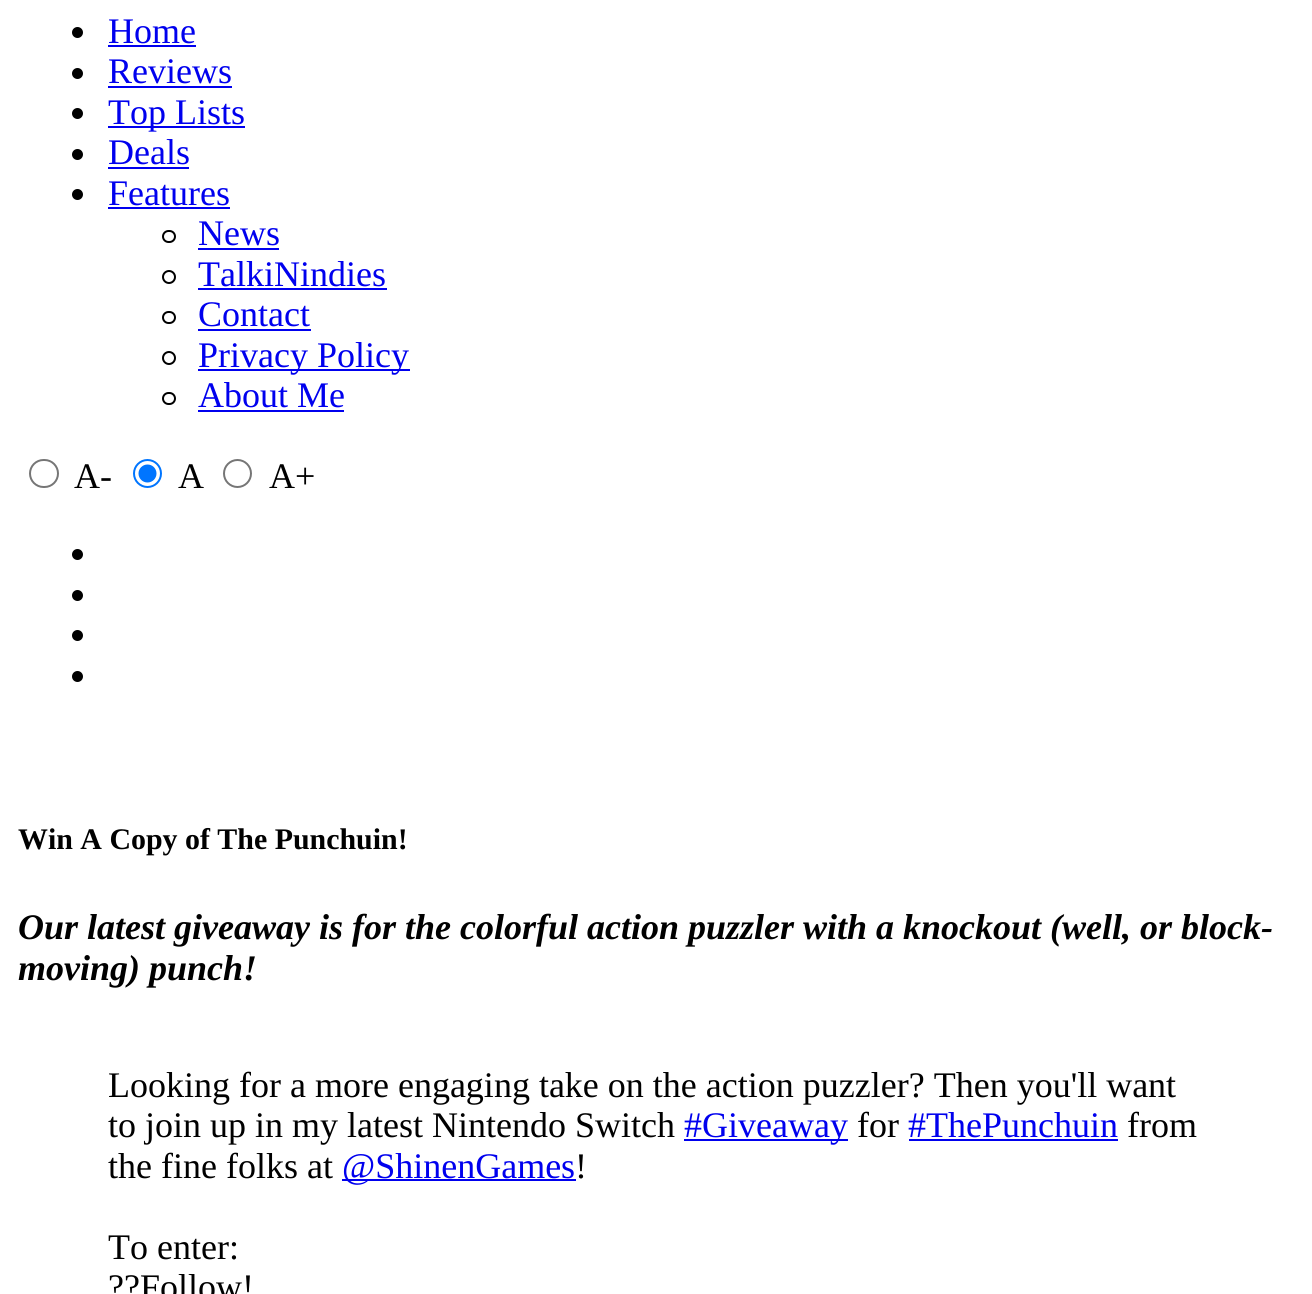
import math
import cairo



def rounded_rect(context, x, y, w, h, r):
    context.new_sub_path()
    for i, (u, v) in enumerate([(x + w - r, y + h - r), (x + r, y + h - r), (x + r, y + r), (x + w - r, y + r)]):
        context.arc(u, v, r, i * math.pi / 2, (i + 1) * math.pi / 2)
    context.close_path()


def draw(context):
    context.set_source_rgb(1, 1, 1)
    context.paint()
    context.set_source_rgb(0, 0, 0)
    context.arc(77.5, 32.5, 5.5, 0, 2 * math.pi)
    context.fill()
    context.set_source_rgb(0, 0, 238 / 255)
    context.rectangle(108, 45, 88, 2)
    context.fill()
    context.set_source_rgb(0, 0, 0)
    context.arc(77.5, 73.5, 5.5, 0, 2 * math.pi)
    context.fill()
    context.set_source_rgb(0, 0, 238 / 255)
    context.rectangle(108, 86, 124, 2)
    context.fill()
    context.set_source_rgb(0, 0, 0)
    context.arc(77.5, 113.5, 5.5, 0, 2 * math.pi)
    context.fill()
    context.set_source_rgb(0, 0, 238 / 255)
    context.rectangle(108, 126, 137, 2)
    context.fill()
    context.set_source_rgb(0, 0, 0)
    context.arc(77.5, 154.5, 5.5, 0, 2 * math.pi)
    context.fill()
    context.set_source_rgb(0, 0, 238 / 255)
    context.rectangle(108, 167, 81, 2)
    context.fill()
    context.set_source_rgb(0, 0, 0)
    context.arc(77.5, 194.5, 5.5, 0, 2 * math.pi)
    context.fill()
    context.set_source_rgb(0, 0, 238 / 255)
    context.rectangle(108, 207, 122, 2)
    context.fill()
    rounded_rect(context, 163, 231, 12, 11, 5.5)
    context.set_source_rgb(0, 0, 0)
    context.stroke()
    context.set_source_rgb(0, 0, 238 / 255)
    context.rectangle(198, 248, 81, 2)
    context.fill()
    context.arc(169, 277, 6, 0, 2 * math.pi)
    context.set_source_rgb(0, 0, 0)
    context.stroke()
    context.set_source_rgb(0, 0, 238 / 255)
    context.rectangle(198, 288, 189, 2)
    context.fill()
    rounded_rect(context, 163, 312, 12, 11, 5.5)
    context.set_source_rgb(0, 0, 0)
    context.stroke()
    context.set_source_rgb(0, 0, 238 / 255)
    context.rectangle(198, 329, 113, 2)
    context.fill()
    context.arc(169, 358, 6, 0, 2 * math.pi)
    context.set_source_rgb(0, 0, 0)
    context.stroke()
    context.set_source_rgb(0, 0, 238 / 255)
    context.rectangle(198, 369, 212, 2)
    context.fill()
    rounded_rect(context, 163, 393, 12, 11, 5.5)
    context.set_source_rgb(0, 0, 0)
    context.stroke()
    context.set_source_rgb(0, 0, 238 / 255)
    context.rectangle(198, 410, 146, 2)
    context.fill()
    rounded_rect(context, 30, 460, 28, 27, 13.5)
    context.set_source_rgb(118 / 255, 118 / 255, 118 / 255)
    context.stroke()
    context.arc(147.5, 473.5, 13.5, 0, 2 * math.pi)
    context.set_source_rgb(0, 117 / 255, 1)
    context.stroke()
    context.arc(147.5, 473.5, 9, 0, 2 * math.pi)
    context.fill()
    context.arc(237.5, 473.5, 13.5, 0, 2 * math.pi)
    context.set_source_rgb(118 / 255, 118 / 255, 118 / 255)
    context.stroke()
    context.set_source_rgb(0, 0, 0)
    context.arc(77.5, 554.5, 5.5, 0, 2 * math.pi)
    context.fill()
    context.arc(77.5, 595.5, 5.5, 0, 2 * math.pi)
    context.fill()
    context.arc(77.5, 635.5, 5.5, 0, 2 * math.pi)
    context.fill()
    context.arc(77.5, 676.5, 5.5, 0, 2 * math.pi)
    context.fill()
    context.set_source_rgb(0, 0, 238 / 255)
    context.rectangle(684, 1139, 164, 2)
    context.fill()
    context.rectangle(909, 1139, 209, 2)
    context.fill()
    context.rectangle(342, 1179, 234, 2)
    context.fill()
    context.select_font_face("Liberation Serif")
    context.set_font_size(36)
    context.move_to(108, 43)
    context.show_text("Home")
    context.move_to(108, 83)
    context.show_text("Reviews")
    context.move_to(108, 124)
    context.show_text("Top Lists")
    context.move_to(108, 164)
    context.show_text("Deals")
    context.move_to(108, 205)
    context.show_text("Features")
    context.move_to(198, 245)
    context.show_text("News")
    context.move_to(198, 286)
    context.show_text("TalkiNindies")
    context.move_to(198, 326)
    context.show_text("Contact")
    context.move_to(198, 367)
    context.show_text("Privacy Policy")
    context.move_to(198, 407)
    context.show_text("About Me")
    context.set_source_rgb(0, 0, 0)
    context.move_to(74, 488)
    context.show_text("A-")
    context.move_to(178, 488)
    context.show_text("A")
    context.move_to(269, 488)
    context.show_text("A+")
    context.select_font_face("Liberation Serif", cairo.FontSlant.NORMAL, cairo.FontWeight.BOLD)
    context.set_font_size(29.9)
    context.move_to(18, 849)
    context.show_text("Win A Copy of The Punchuin!")
    context.select_font_face("Liberation Serif", cairo.FontSlant.ITALIC, cairo.FontWeight.BOLD)
    context.set_font_size(36)
    context.move_to(18, 939)
    context.show_text("Our latest giveaway is for the colorful action puzzler with a knockout (well, or block-")
    context.move_to(18, 980)
    context.show_text("moving) punch!")
    context.select_font_face("Liberation Serif")
    context.move_to(108, 1097)
    context.show_text("Looking for a more engaging take on the action puzzler? Then you'll want")
    context.move_to(108, 1137)
    context.show_text("to join up in my latest Nintendo Switch")
    context.set_source_rgb(0, 0, 238 / 255)
    context.move_to(684, 1137)
    context.show_text("#Giveaway")
    context.set_source_rgb(0, 0, 0)
    context.move_to(857, 1137)
    context.show_text("for")
    context.set_source_rgb(0, 0, 238 / 255)
    context.move_to(908, 1137)
    context.show_text("#ThePunchuin")
    context.set_source_rgb(0, 0, 0)
    context.move_to(1127, 1137)
    context.show_text("from")
    context.move_to(108, 1178)
    context.show_text("the fine folks at")
    context.set_source_rgb(0, 0, 238 / 255)
    context.move_to(342, 1178)
    context.show_text("@ShinenGames")
    context.set_source_rgb(0, 0, 0)
    context.move_to(575, 1178)
    context.show_text("!")
    context.move_to(108, 1259)
    context.show_text("To enter:")
    context.move_to(108, 1299)
    context.show_text("??Follow!")


surface = cairo.ImageSurface(cairo.Format.RGB24, 1312, 1294)
context = cairo.Context(surface)
options = cairo.FontOptions()
options.set_hint_metrics(cairo.HintMetrics.OFF)
options.set_hint_style(cairo.HintStyle.NONE)
context.set_font_options(options)
context.set_miter_limit(4)
draw(context)
surface.write_to_png("out.png")
